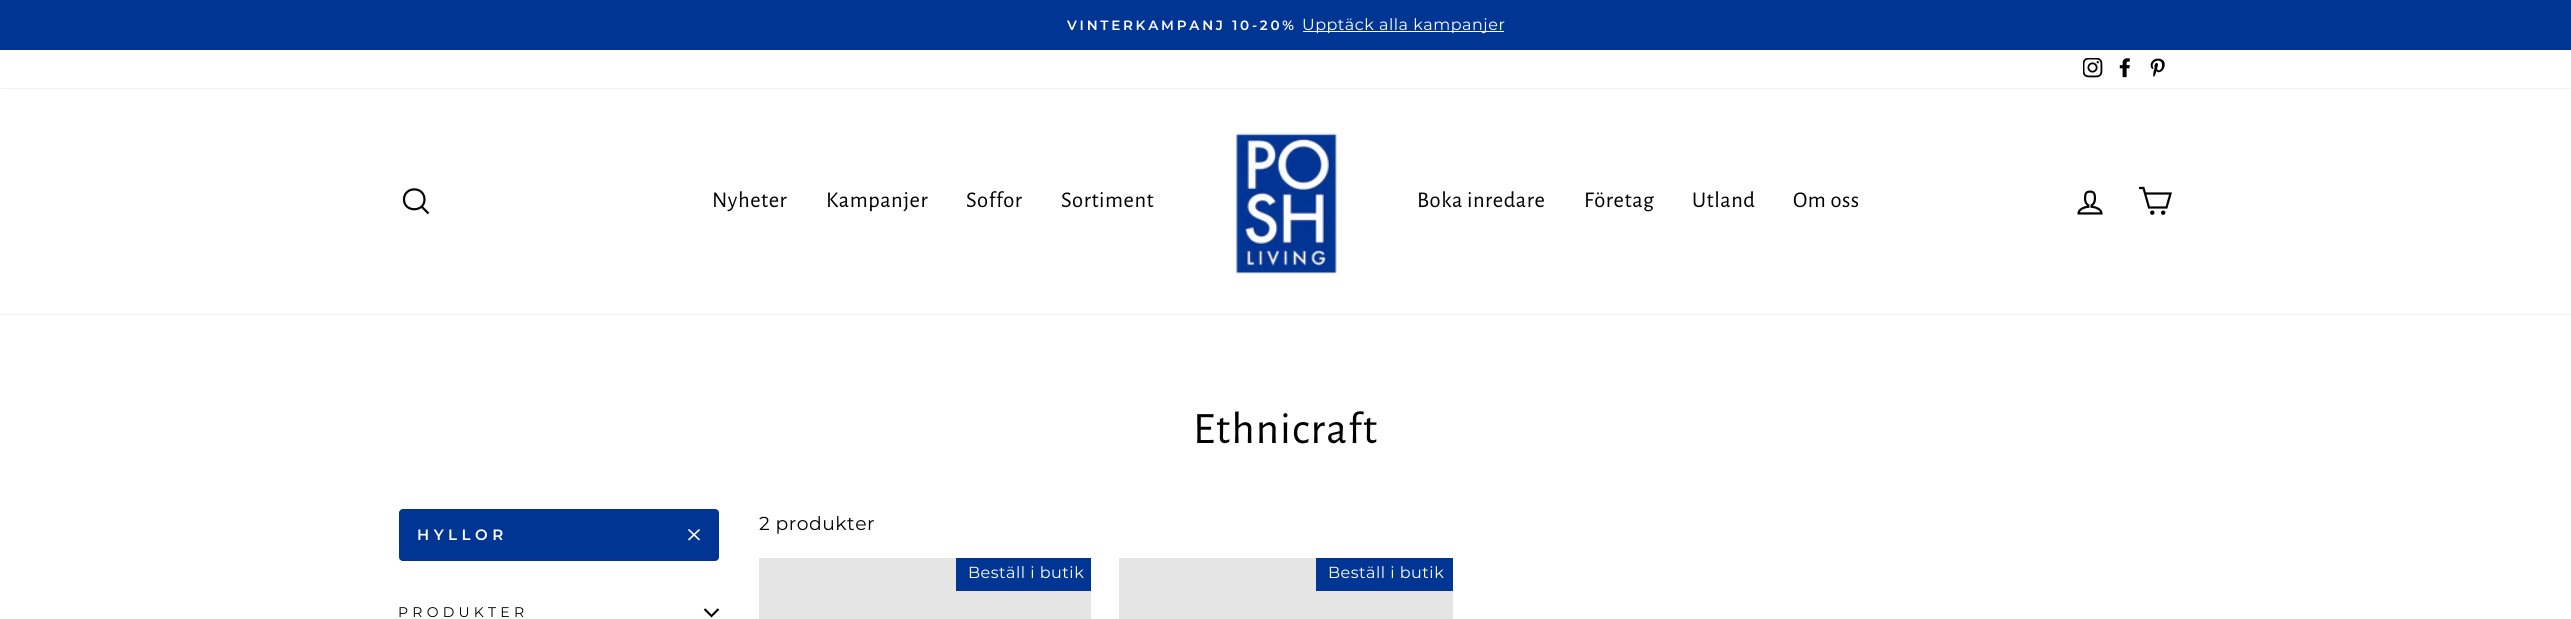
import math
import cairo



def draw_spaced(context, x, y, s, letter, word):
    context.move_to(x, y)
    for ch in s:
        context.show_text(ch)
        context.rel_move_to(letter + word * (ch == ' '), 0)


def rounded_rect(context, x, y, w, h, r):
    context.new_sub_path()
    for i, (u, v) in enumerate([(x + w - r, y + h - r), (x + r, y + h - r), (x + r, y + r), (x + w - r, y + r)]):
        context.arc(u, v, r, i * math.pi / 2, (i + 1) * math.pi / 2)
    context.close_path()


def draw_shadow(context, x, y, w, h, r, blur, alpha):
    context.push_group_with_content(cairo.Content.ALPHA)
    context.set_operator(cairo.Operator.SOURCE)
    for i in range(15, -16, -2):
        e = blur * i / 6
        if min(w, h) + 2 * e > 0:
            context.set_source_rgba(0, 0, 0, alpha * math.erfc((i - 1) / 8.5) / 2)
            rounded_rect(context, x - e, y - e, w + 2 * e, h + 2 * e, max(0, min(r + e + blur * .6, min(w, h) / 2 + e)))
            context.fill()
    context.mask(context.pop_group())


def draw_image(context, path, x, y, w, h):
    context.save()
    context.set_source_surface(cairo.ImageSurface.create_from_png(path), x, y)
    context.rectangle(x, y, w, h)
    context.fill()
    context.restore()


def draw(context):
    context.set_source_rgb(1, 1, 1)
    context.paint()
    context.set_source_rgb(0, 53 / 255, 148 / 255)
    context.rectangle(0, 0, 2571, 50)
    context.fill()
    context.set_source_rgb(1, 1, 1)
    context.rectangle(1303, 31, 201, 1)
    context.fill()
    draw_image(context, "images/1.png", 2083, 58, 20, 20)
    draw_image(context, "images/2.png", 2119, 58, 11, 20)
    draw_image(context, "images/3.png", 2150, 58, 15, 19)
    context.set_source_rgb(0, 0, 0)
    draw_shadow(context, 0, 89, 2571, 225, 0, 0.5, 0.2)
    context.set_source_rgb(1, 1, 1)
    context.rectangle(0, 89, 2571, 225)
    context.fill()
    context.new_path()
    context.move_to(424.5, 199.5)
    context.curve_to(424.5, 212.5, 404, 212.5, 404, 199.5)
    context.curve_to(404, 186, 424.5, 186, 424.5, 199.5)
    context.close_path()
    context.move_to(428.5, 213.5)
    context.line_to(421.5, 206.5)
    context.set_source_rgb(0, 0, 0)
    context.set_line_width(2.2)
    context.stroke()
    draw_image(context, "images/4.png", 1236, 133, 101, 141)
    draw_image(context, "images/5.png", 2077, 190, 26, 25)
    context.new_path()
    context.move_to(2145, 193.5)
    context.line_to(2170.5, 193.5)
    context.line_to(2166.5, 207.5)
    context.line_to(2149, 207.5)
    context.line_to(2143.5, 188)
    context.line_to(2139, 188)
    context.stroke()
    context.arc(2152.3, 212.7, 1.1, 0, 2 * math.pi)
    context.stroke()
    context.arc(2163.2, 212.7, 1.1, 0, 2 * math.pi)
    context.stroke()
    context.set_source_rgb(0, 53 / 255, 148 / 255)
    rounded_rect(context, 399, 509, 320, 52, 4)
    context.fill()
    context.new_path()
    context.move_to(688.5, 529.5)
    context.line_to(699.5, 540)
    context.move_to(699.5, 529.5)
    context.line_to(688.5, 540)
    context.set_source_rgb(1, 1, 1)
    context.set_line_width(1.6)
    context.stroke()
    context.new_path()
    context.move_to(704.5, 609)
    context.line_to(711.5, 616)
    context.line_to(718.5, 609)
    context.set_source_rgb(0, 0, 0)
    context.set_line_width(2.1)
    context.stroke()
    context.set_source_rgb(229 / 255, 229 / 255, 229 / 255)
    context.rectangle(759, 558, 332, 61)
    context.fill()
    context.set_source_rgb(0, 53 / 255, 148 / 255)
    context.rectangle(956, 558, 135, 33)
    context.fill()
    context.set_source_rgb(229 / 255, 229 / 255, 229 / 255)
    context.rectangle(1119, 558, 334, 61)
    context.fill()
    context.set_source_rgb(0, 53 / 255, 148 / 255)
    context.rectangle(1316, 558, 137, 33)
    context.fill()
    context.select_font_face("Montserrat SemiBold")
    context.set_font_size(13.5)
    context.set_source_rgb(1, 1, 1)
    draw_spaced(context, 1067, 30, "VINTERKAMPANJ 10-20%", 2.75, 0)
    context.select_font_face("Montserrat Thin")
    context.set_font_size(16)
    draw_spaced(context, 1302, 30, "Upptäck alla kampanjer", 0.5, 0)
    context.select_font_face("Alegreya Sans")
    context.set_font_size(22.5)
    context.set_source_rgb(0, 0, 0)
    draw_spaced(context, 712, 207, "Nyheter", 0.5, 0)
    draw_spaced(context, 826, 207, "Kampanjer", 0.5, 0)
    draw_spaced(context, 966, 207, "Soffor", 0.5, 0)
    draw_spaced(context, 1061, 207, "Sortiment", 0.5, 0)
    draw_spaced(context, 1417, 207, "Boka inredare", 0.5, 0)
    draw_spaced(context, 1584, 207, "Företag", 0.5, 0)
    draw_spaced(context, 1692, 207, "Utland", 0.5, 0)
    draw_spaced(context, 1793, 207, "Om oss", 0.5, 0)
    context.set_font_size(45)
    draw_spaced(context, 1193, 443, "Ethnicraft", 1.1, 0)
    context.select_font_face("Montserrat SemiBold")
    context.set_font_size(15)
    context.set_source_rgb(1, 1, 1)
    draw_spaced(context, 417, 540, "HYLLOR", 4.5, 0)
    context.select_font_face("Montserrat Thin")
    context.set_font_size(14)
    context.set_source_rgb(0, 0, 0)
    draw_spaced(context, 398, 617, "PRODUKTER", 4.25, 0)
    context.set_font_size(18.75)
    draw_spaced(context, 759, 530, "2 produkter", 0.5, 0)
    context.set_font_size(16)
    context.set_source_rgb(1, 1, 1)
    draw_spaced(context, 968, 578, "Beställ i butik", 0.5, 0)
    draw_spaced(context, 1328, 578, "Beställ i butik", 0.5, 0)


surface = cairo.ImageSurface(cairo.Format.RGB24, 2571, 619)
context = cairo.Context(surface)
options = cairo.FontOptions()
options.set_hint_metrics(cairo.HintMetrics.OFF)
options.set_hint_style(cairo.HintStyle.NONE)
context.set_font_options(options)
context.set_miter_limit(4)
draw(context)
surface.write_to_png("out.png")
